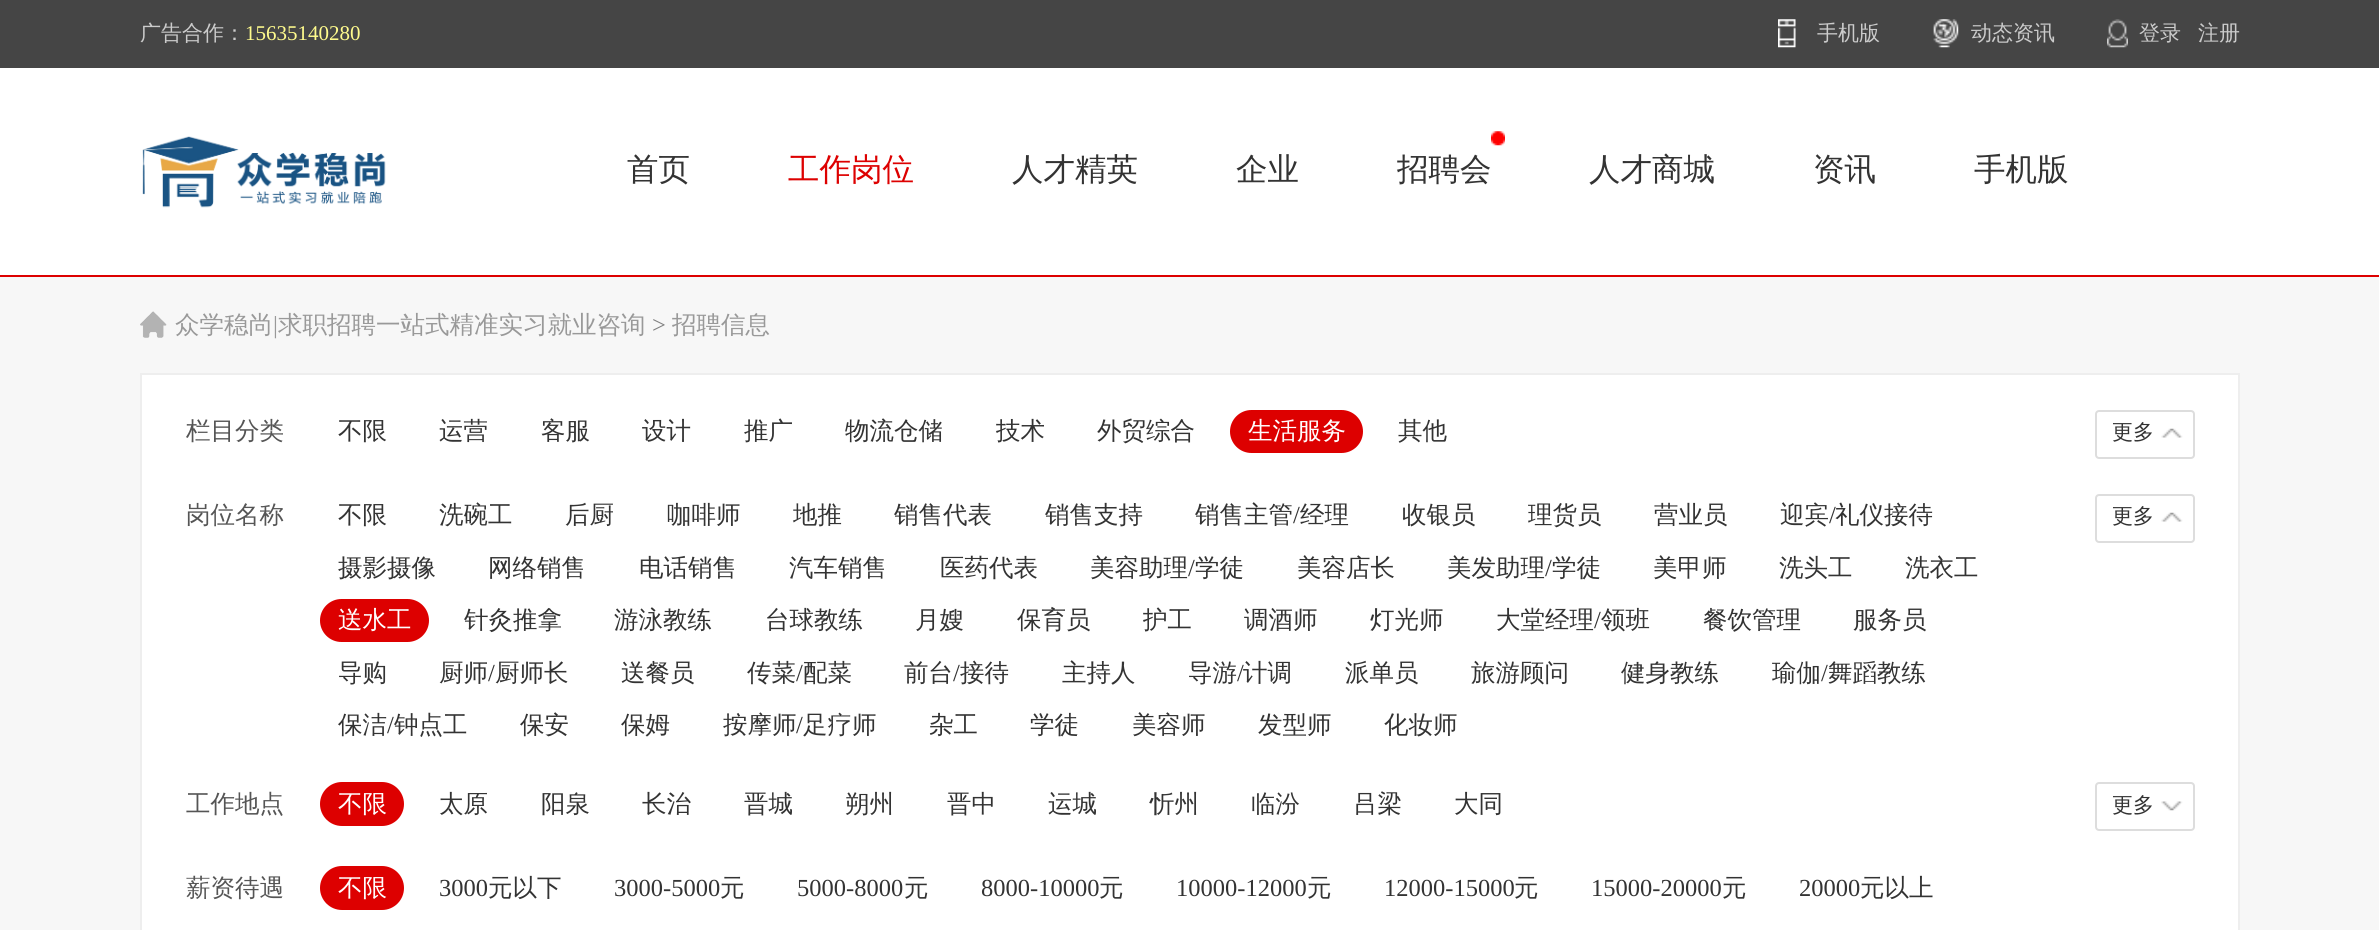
import math
import cairo



def rounded_rect(context, x, y, w, h, r):
    context.new_sub_path()
    for i, (u, v) in enumerate([(x + w - r, y + h - r), (x + r, y + h - r), (x + r, y + r), (x + w - r, y + r)]):
        context.arc(u, v, r, i * math.pi / 2, (i + 1) * math.pi / 2)
    context.close_path()


def draw_image(context, path, x, y, w, h):
    context.save()
    context.set_source_surface(cairo.ImageSurface.create_from_png(path), x, y)
    context.rectangle(x, y, w, h)
    context.fill()
    context.restore()


def draw(context):
    context.set_source_rgb(247 / 255, 247 / 255, 247 / 255)
    context.paint()
    context.set_source_rgb(69 / 255, 69 / 255, 69 / 255)
    context.rectangle(0, 0, 2379, 68)
    context.fill()
    draw_image(context, "images/1.png", 1778, 19, 18, 29)
    draw_image(context, "images/2.png", 1933, 19, 26, 29)
    draw_image(context, "images/3.png", 2107, 19, 21, 29)
    context.set_source_rgb(1, 1, 1)
    context.rectangle(0, 68, 2379, 207)
    context.fill()
    context.set_source_rgb(221 / 255, 0, 0)
    context.rectangle(0, 275, 2379, 2)
    context.fill()
    draw_image(context, "images/4.png", 142, 136, 244, 72)
    draw_image(context, "images/5.png", 1491, 131, 14, 15)
    draw_image(context, "images/6.png", 140, 311, 27, 27)
    context.set_source_rgb(1, 1, 1)
    context.rectangle(141, 374, 2098, 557)
    context.fill_preserve()
    context.set_source_rgb(238 / 255, 238 / 255, 238 / 255)
    context.stroke()
    context.set_source_rgb(221 / 255, 0, 0)
    rounded_rect(context, 1230, 410, 133, 43, 21.5)
    context.fill()
    draw_image(context, "images/7.png", 2161, 428, 22, 10)
    rounded_rect(context, 2096, 411, 98, 47, 3)
    context.set_source_rgb(221 / 255, 221 / 255, 221 / 255)
    context.stroke()
    context.set_source_rgb(221 / 255, 0, 0)
    rounded_rect(context, 320, 599, 109, 43, 21.5)
    context.fill()
    draw_image(context, "images/7.png", 2161, 512, 22, 10)
    rounded_rect(context, 2096, 495, 98, 47, 3)
    context.set_source_rgb(221 / 255, 221 / 255, 221 / 255)
    context.stroke()
    context.set_source_rgb(221 / 255, 0, 0)
    rounded_rect(context, 320, 782, 84, 44, 22)
    context.fill()
    draw_image(context, "images/8.png", 2161, 801, 22, 10)
    rounded_rect(context, 2096, 783, 98, 47, 3)
    context.set_source_rgb(221 / 255, 221 / 255, 221 / 255)
    context.stroke()
    context.set_source_rgb(221 / 255, 0, 0)
    rounded_rect(context, 320, 866, 84, 44, 22)
    context.fill()
    context.select_font_face("WenQuanYi Zen Hei Medium")
    context.set_font_size(21)
    context.set_source_rgb(203 / 255, 203 / 255, 203 / 255)
    context.move_to(140, 40)
    context.show_text("广告合作：")
    context.select_font_face("Liberation Serif")
    context.set_source_rgb(1, 251 / 255, 141 / 255)
    context.move_to(245, 40)
    context.show_text("15635140280")
    context.select_font_face("WenQuanYi Zen Hei Medium")
    context.set_source_rgb(203 / 255, 203 / 255, 203 / 255)
    context.move_to(1817, 40)
    context.show_text("手机版")
    context.move_to(1971, 40)
    context.show_text("动态资讯")
    context.move_to(2139, 40)
    context.show_text("登录")
    context.move_to(2198, 40)
    context.show_text("注册")
    context.set_font_size(31.5)
    context.set_source_rgb(51 / 255, 51 / 255, 51 / 255)
    context.move_to(627, 180)
    context.show_text("首页")
    context.set_source_rgb(221 / 255, 0, 0)
    context.move_to(788, 180)
    context.show_text("工作岗位")
    context.set_source_rgb(51 / 255, 51 / 255, 51 / 255)
    context.move_to(1012, 180)
    context.show_text("人才精英")
    context.move_to(1236, 180)
    context.show_text("企业")
    context.move_to(1397, 180)
    context.show_text("招聘会")
    context.move_to(1589, 180)
    context.show_text("人才商城")
    context.move_to(1813, 180)
    context.show_text("资讯")
    context.move_to(1974, 180)
    context.show_text("手机版")
    context.set_font_size(24.5)
    context.set_source_rgb(153 / 255, 153 / 255, 153 / 255)
    context.move_to(175, 333)
    context.show_text("众学稳尚")
    context.select_font_face("Liberation Serif")
    context.move_to(273, 333)
    context.show_text("|")
    context.select_font_face("WenQuanYi Zen Hei Medium")
    context.move_to(278, 333)
    context.show_text("求职招聘一站式精准实习就业咨询")
    context.select_font_face("Liberation Serif")
    context.set_source_rgb(127 / 255, 127 / 255, 127 / 255)
    context.move_to(652, 333)
    context.show_text(">")
    context.select_font_face("WenQuanYi Zen Hei Medium")
    context.set_source_rgb(153 / 255, 153 / 255, 153 / 255)
    context.move_to(672, 333)
    context.show_text("招聘信息")
    context.set_source_rgb(85 / 255, 85 / 255, 85 / 255)
    context.move_to(186, 439)
    context.show_text("栏目分类")
    context.set_source_rgb(51 / 255, 51 / 255, 51 / 255)
    context.move_to(338, 439)
    context.show_text("不限")
    context.move_to(439, 439)
    context.show_text("运营")
    context.move_to(541, 439)
    context.show_text("客服")
    context.move_to(642, 439)
    context.show_text("设计")
    context.move_to(744, 439)
    context.show_text("推广")
    context.move_to(845, 439)
    context.show_text("物流仓储")
    context.move_to(996, 439)
    context.show_text("技术")
    context.move_to(1097, 439)
    context.show_text("外贸综合")
    context.set_source_rgb(1, 1, 1)
    context.move_to(1248, 439)
    context.show_text("生活服务")
    context.set_source_rgb(51 / 255, 51 / 255, 51 / 255)
    context.move_to(1398, 439)
    context.show_text("其他")
    context.set_font_size(21)
    context.move_to(2112, 439)
    context.show_text("更多")
    context.set_font_size(24.5)
    context.set_source_rgb(85 / 255, 85 / 255, 85 / 255)
    context.move_to(186, 523)
    context.show_text("岗位名称")
    context.set_source_rgb(51 / 255, 51 / 255, 51 / 255)
    context.move_to(338, 523)
    context.show_text("不限")
    context.move_to(439, 523)
    context.show_text("洗碗工")
    context.move_to(565, 523)
    context.show_text("后厨")
    context.move_to(667, 523)
    context.show_text("咖啡师")
    context.move_to(793, 523)
    context.show_text("地推")
    context.move_to(894, 523)
    context.show_text("销售代表")
    context.move_to(1045, 523)
    context.show_text("销售支持")
    context.move_to(1195, 523)
    context.show_text("销售主管")
    context.select_font_face("Liberation Serif")
    context.move_to(1293, 523)
    context.show_text("/")
    context.select_font_face("WenQuanYi Zen Hei Medium")
    context.move_to(1300, 523)
    context.show_text("经理")
    context.move_to(1402, 523)
    context.show_text("收银员")
    context.move_to(1528, 523)
    context.show_text("理货员")
    context.move_to(1654, 523)
    context.show_text("营业员")
    context.move_to(1780, 523)
    context.show_text("迎宾")
    context.select_font_face("Liberation Serif")
    context.move_to(1829, 523)
    context.show_text("/")
    context.select_font_face("WenQuanYi Zen Hei Medium")
    context.move_to(1835, 523)
    context.show_text("礼仪接待")
    context.move_to(338, 576)
    context.show_text("摄影摄像")
    context.move_to(488, 576)
    context.show_text("网络销售")
    context.move_to(639, 576)
    context.show_text("电话销售")
    context.move_to(789, 576)
    context.show_text("汽车销售")
    context.move_to(940, 576)
    context.show_text("医药代表")
    context.move_to(1090, 576)
    context.show_text("美容助理")
    context.select_font_face("Liberation Serif")
    context.move_to(1188, 576)
    context.show_text("/")
    context.select_font_face("WenQuanYi Zen Hei Medium")
    context.move_to(1195, 576)
    context.show_text("学徒")
    context.move_to(1297, 576)
    context.show_text("美容店长")
    context.move_to(1447, 576)
    context.show_text("美发助理")
    context.select_font_face("Liberation Serif")
    context.move_to(1545, 576)
    context.show_text("/")
    context.select_font_face("WenQuanYi Zen Hei Medium")
    context.move_to(1552, 576)
    context.show_text("学徒")
    context.move_to(1653, 576)
    context.show_text("美甲师")
    context.move_to(1779, 576)
    context.show_text("洗头工")
    context.move_to(1905, 576)
    context.show_text("洗衣工")
    context.set_source_rgb(1, 1, 1)
    context.move_to(338, 628)
    context.show_text("送水工")
    context.set_source_rgb(51 / 255, 51 / 255, 51 / 255)
    context.move_to(464, 628)
    context.show_text("针灸推拿")
    context.move_to(614, 628)
    context.show_text("游泳教练")
    context.move_to(765, 628)
    context.show_text("台球教练")
    context.move_to(915, 628)
    context.show_text("月嫂")
    context.move_to(1017, 628)
    context.show_text("保育员")
    context.move_to(1143, 628)
    context.show_text("护工")
    context.move_to(1244, 628)
    context.show_text("调酒师")
    context.move_to(1370, 628)
    context.show_text("灯光师")
    context.move_to(1496, 628)
    context.show_text("大堂经理")
    context.select_font_face("Liberation Serif")
    context.move_to(1594, 628)
    context.show_text("/")
    context.select_font_face("WenQuanYi Zen Hei Medium")
    context.move_to(1601, 628)
    context.show_text("领班")
    context.move_to(1703, 628)
    context.show_text("餐饮管理")
    context.move_to(1853, 628)
    context.show_text("服务员")
    context.move_to(338, 681)
    context.show_text("导购")
    context.move_to(439, 681)
    context.show_text("厨师")
    context.select_font_face("Liberation Serif")
    context.move_to(488, 681)
    context.show_text("/")
    context.select_font_face("WenQuanYi Zen Hei Medium")
    context.move_to(495, 681)
    context.show_text("厨师长")
    context.move_to(621, 681)
    context.show_text("送餐员")
    context.move_to(747, 681)
    context.show_text("传菜")
    context.select_font_face("Liberation Serif")
    context.move_to(796, 681)
    context.show_text("/")
    context.select_font_face("WenQuanYi Zen Hei Medium")
    context.move_to(803, 681)
    context.show_text("配菜")
    context.move_to(904, 681)
    context.show_text("前台")
    context.select_font_face("Liberation Serif")
    context.move_to(953, 681)
    context.show_text("/")
    context.select_font_face("WenQuanYi Zen Hei Medium")
    context.move_to(960, 681)
    context.show_text("接待")
    context.move_to(1062, 681)
    context.show_text("主持人")
    context.move_to(1188, 681)
    context.show_text("导游")
    context.select_font_face("Liberation Serif")
    context.move_to(1237, 681)
    context.show_text("/")
    context.select_font_face("WenQuanYi Zen Hei Medium")
    context.move_to(1243, 681)
    context.show_text("计调")
    context.move_to(1345, 681)
    context.show_text("派单员")
    context.move_to(1471, 681)
    context.show_text("旅游顾问")
    context.move_to(1621, 681)
    context.show_text("健身教练")
    context.move_to(1772, 681)
    context.show_text("瑜伽")
    context.select_font_face("Liberation Serif")
    context.move_to(1821, 681)
    context.show_text("/")
    context.select_font_face("WenQuanYi Zen Hei Medium")
    context.move_to(1828, 681)
    context.show_text("舞蹈教练")
    context.move_to(338, 733)
    context.show_text("保洁")
    context.select_font_face("Liberation Serif")
    context.move_to(387, 733)
    context.show_text("/")
    context.select_font_face("WenQuanYi Zen Hei Medium")
    context.move_to(394, 733)
    context.show_text("钟点工")
    context.move_to(520, 733)
    context.show_text("保安")
    context.move_to(621, 733)
    context.show_text("保姆")
    context.move_to(723, 733)
    context.show_text("按摩师")
    context.select_font_face("Liberation Serif")
    context.move_to(796, 733)
    context.show_text("/")
    context.select_font_face("WenQuanYi Zen Hei Medium")
    context.move_to(803, 733)
    context.show_text("足疗师")
    context.move_to(929, 733)
    context.show_text("杂工")
    context.move_to(1030, 733)
    context.show_text("学徒")
    context.move_to(1132, 733)
    context.show_text("美容师")
    context.move_to(1258, 733)
    context.show_text("发型师")
    context.move_to(1384, 733)
    context.show_text("化妆师")
    context.set_font_size(21)
    context.move_to(2112, 523)
    context.show_text("更多")
    context.set_font_size(24.5)
    context.set_source_rgb(85 / 255, 85 / 255, 85 / 255)
    context.move_to(186, 812)
    context.show_text("工作地点")
    context.set_source_rgb(1, 1, 1)
    context.move_to(338, 812)
    context.show_text("不限")
    context.set_source_rgb(51 / 255, 51 / 255, 51 / 255)
    context.move_to(439, 812)
    context.show_text("太原")
    context.move_to(541, 812)
    context.show_text("阳泉")
    context.move_to(642, 812)
    context.show_text("长治")
    context.move_to(744, 812)
    context.show_text("晋城")
    context.move_to(845, 812)
    context.show_text("朔州")
    context.move_to(947, 812)
    context.show_text("晋中")
    context.move_to(1048, 812)
    context.show_text("运城")
    context.move_to(1150, 812)
    context.show_text("忻州")
    context.move_to(1251, 812)
    context.show_text("临汾")
    context.move_to(1353, 812)
    context.show_text("吕梁")
    context.move_to(1454, 812)
    context.show_text("大同")
    context.set_font_size(21)
    context.move_to(2112, 812)
    context.show_text("更多")
    context.set_font_size(24.5)
    context.set_source_rgb(85 / 255, 85 / 255, 85 / 255)
    context.move_to(186, 896)
    context.show_text("薪资待遇")
    context.set_source_rgb(1, 1, 1)
    context.move_to(338, 896)
    context.show_text("不限")
    context.select_font_face("Liberation Serif")
    context.set_source_rgb(51 / 255, 51 / 255, 51 / 255)
    context.move_to(439, 896)
    context.show_text("3000")
    context.select_font_face("WenQuanYi Zen Hei Medium")
    context.move_to(488, 896)
    context.show_text("元以下")
    context.select_font_face("Liberation Serif")
    context.move_to(614, 896)
    context.show_text("3000-5000")
    context.select_font_face("WenQuanYi Zen Hei Medium")
    context.move_to(720, 896)
    context.show_text("元")
    context.select_font_face("Liberation Serif")
    context.move_to(797, 896)
    context.show_text("5000-8000")
    context.select_font_face("WenQuanYi Zen Hei Medium")
    context.move_to(904, 896)
    context.show_text("元")
    context.select_font_face("Liberation Serif")
    context.move_to(981, 896)
    context.show_text("8000-10000")
    context.select_font_face("WenQuanYi Zen Hei Medium")
    context.move_to(1099, 896)
    context.show_text("元")
    context.select_font_face("Liberation Serif")
    context.move_to(1176, 896)
    context.show_text("10000-12000")
    context.select_font_face("WenQuanYi Zen Hei Medium")
    context.move_to(1307, 896)
    context.show_text("元")
    context.select_font_face("Liberation Serif")
    context.move_to(1384, 896)
    context.show_text("12000-15000")
    context.select_font_face("WenQuanYi Zen Hei Medium")
    context.move_to(1514, 896)
    context.show_text("元")
    context.select_font_face("Liberation Serif")
    context.move_to(1591, 896)
    context.show_text("15000-20000")
    context.select_font_face("WenQuanYi Zen Hei Medium")
    context.move_to(1722, 896)
    context.show_text("元")
    context.select_font_face("Liberation Serif")
    context.move_to(1799, 896)
    context.show_text("20000")
    context.select_font_face("WenQuanYi Zen Hei Medium")
    context.move_to(1860, 896)
    context.show_text("元以上")


surface = cairo.ImageSurface(cairo.Format.RGB24, 2379, 930)
context = cairo.Context(surface)
options = cairo.FontOptions()
options.set_hint_metrics(cairo.HintMetrics.OFF)
options.set_hint_style(cairo.HintStyle.NONE)
context.set_font_options(options)
context.set_miter_limit(4)
draw(context)
surface.write_to_png("out.png")
